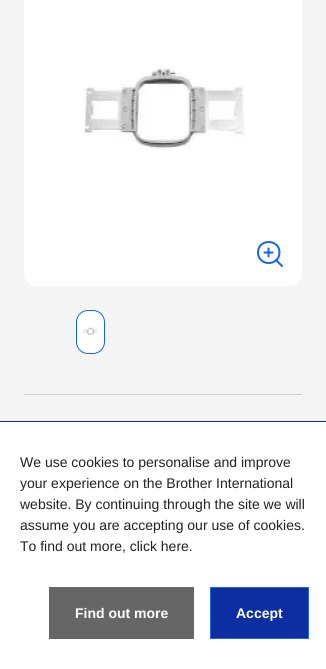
import math
import cairo



def rounded_rect(context, x, y, w, h, r):
    context.new_sub_path()
    for i, (u, v) in enumerate([(x + w - r, y + h - r), (x + r, y + h - r), (x + r, y + r), (x + w - r, y + r)]):
        context.arc(u, v, r, i * math.pi / 2, (i + 1) * math.pi / 2)
    context.close_path()


def draw_image(context, path, x, y, w, h):
    context.save()
    context.set_source_surface(cairo.ImageSurface.create_from_png(path), x, y)
    context.rectangle(x, y, w, h)
    context.fill()
    context.restore()


def draw(context):
    context.set_source_rgb(245 / 255, 245 / 255, 245 / 255)
    context.paint()
    context.set_source_rgb(1, 1, 1)
    rounded_rect(context, 24, -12, 278, 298, 12)
    context.fill()
    draw_image(context, "images/1.png", 83, 66, 162, 85)
    context.new_path()
    context.move_to(282, 266)
    context.line_to(276, 260)
    context.move_to(268.5, 248.5)
    context.line_to(268.5, 256.5)
    context.move_to(264.5, 252.5)
    context.line_to(272.5, 252.5)
    context.move_to(279.5, 252.5)
    context.curve_to(279.5, 266.5, 258, 266.5, 258, 252.5)
    context.curve_to(258, 238.5, 279.5, 238.5, 279.5, 252.5)
    context.close_path()
    context.set_source_rgb(25 / 255, 101 / 255, 225 / 255)
    context.set_line_cap(cairo.LineCap.ROUND)
    context.set_line_join(cairo.LineJoin.ROUND)
    context.stroke()
    context.set_source_rgb(1, 1, 1)
    rounded_rect(context, 76.5, 310.5, 28, 43, 11.5)
    context.fill_preserve()
    context.set_source_rgb(25 / 255, 101 / 255, 225 / 255)
    context.set_line_width(1)
    context.set_line_cap(cairo.LineCap.BUTT)
    context.set_line_join(cairo.LineJoin.MITER)
    context.stroke()
    draw_image(context, "images/2.png", 83, 327, 15, 8)
    context.set_source_rgb(204 / 255, 204 / 255, 204 / 255)
    context.rectangle(24, 394, 278, 1)
    context.fill()
    context.set_source_rgb(1, 1, 1)
    context.rectangle(0, 422, 326, 247)
    context.fill()
    context.set_source_rgb(13 / 255, 46 / 255, 160 / 255)
    context.rectangle(0, 421, 326, 1)
    context.fill()
    context.set_source_rgb(102 / 255, 102 / 255, 102 / 255)
    context.rectangle(49, 587, 145, 52)
    context.fill()
    context.set_source_rgb(13 / 255, 46 / 255, 160 / 255)
    context.rectangle(210.5, 587.5, 98, 51)
    context.fill_preserve()
    context.set_source_rgb(33 / 255, 105 / 255, 222 / 255)
    context.stroke()
    context.select_font_face("Liberation Sans")
    context.set_font_size(14)
    context.set_source_rgb(33 / 255, 33 / 255, 33 / 255)
    context.move_to(20, 467)
    context.show_text("We use cookies to personalise and improve")
    context.move_to(20, 488)
    context.show_text("your experience on the Brother International")
    context.move_to(20, 509)
    context.show_text("website. By continuing through the site we will")
    context.move_to(20, 530)
    context.show_text("assume you are accepting our use of cookies.")
    context.move_to(20, 551)
    context.show_text("To find out more, click here.")
    context.select_font_face("Liberation Sans", cairo.FontSlant.NORMAL, cairo.FontWeight.BOLD)
    context.set_source_rgb(1, 1, 1)
    context.move_to(75, 618)
    context.show_text("Find out more")
    context.move_to(236, 618)
    context.show_text("Accept")


surface = cairo.ImageSurface(cairo.Format.RGB24, 326, 669)
context = cairo.Context(surface)
options = cairo.FontOptions()
options.set_hint_metrics(cairo.HintMetrics.OFF)
options.set_hint_style(cairo.HintStyle.NONE)
context.set_font_options(options)
context.set_miter_limit(4)
draw(context)
surface.write_to_png("out.png")
